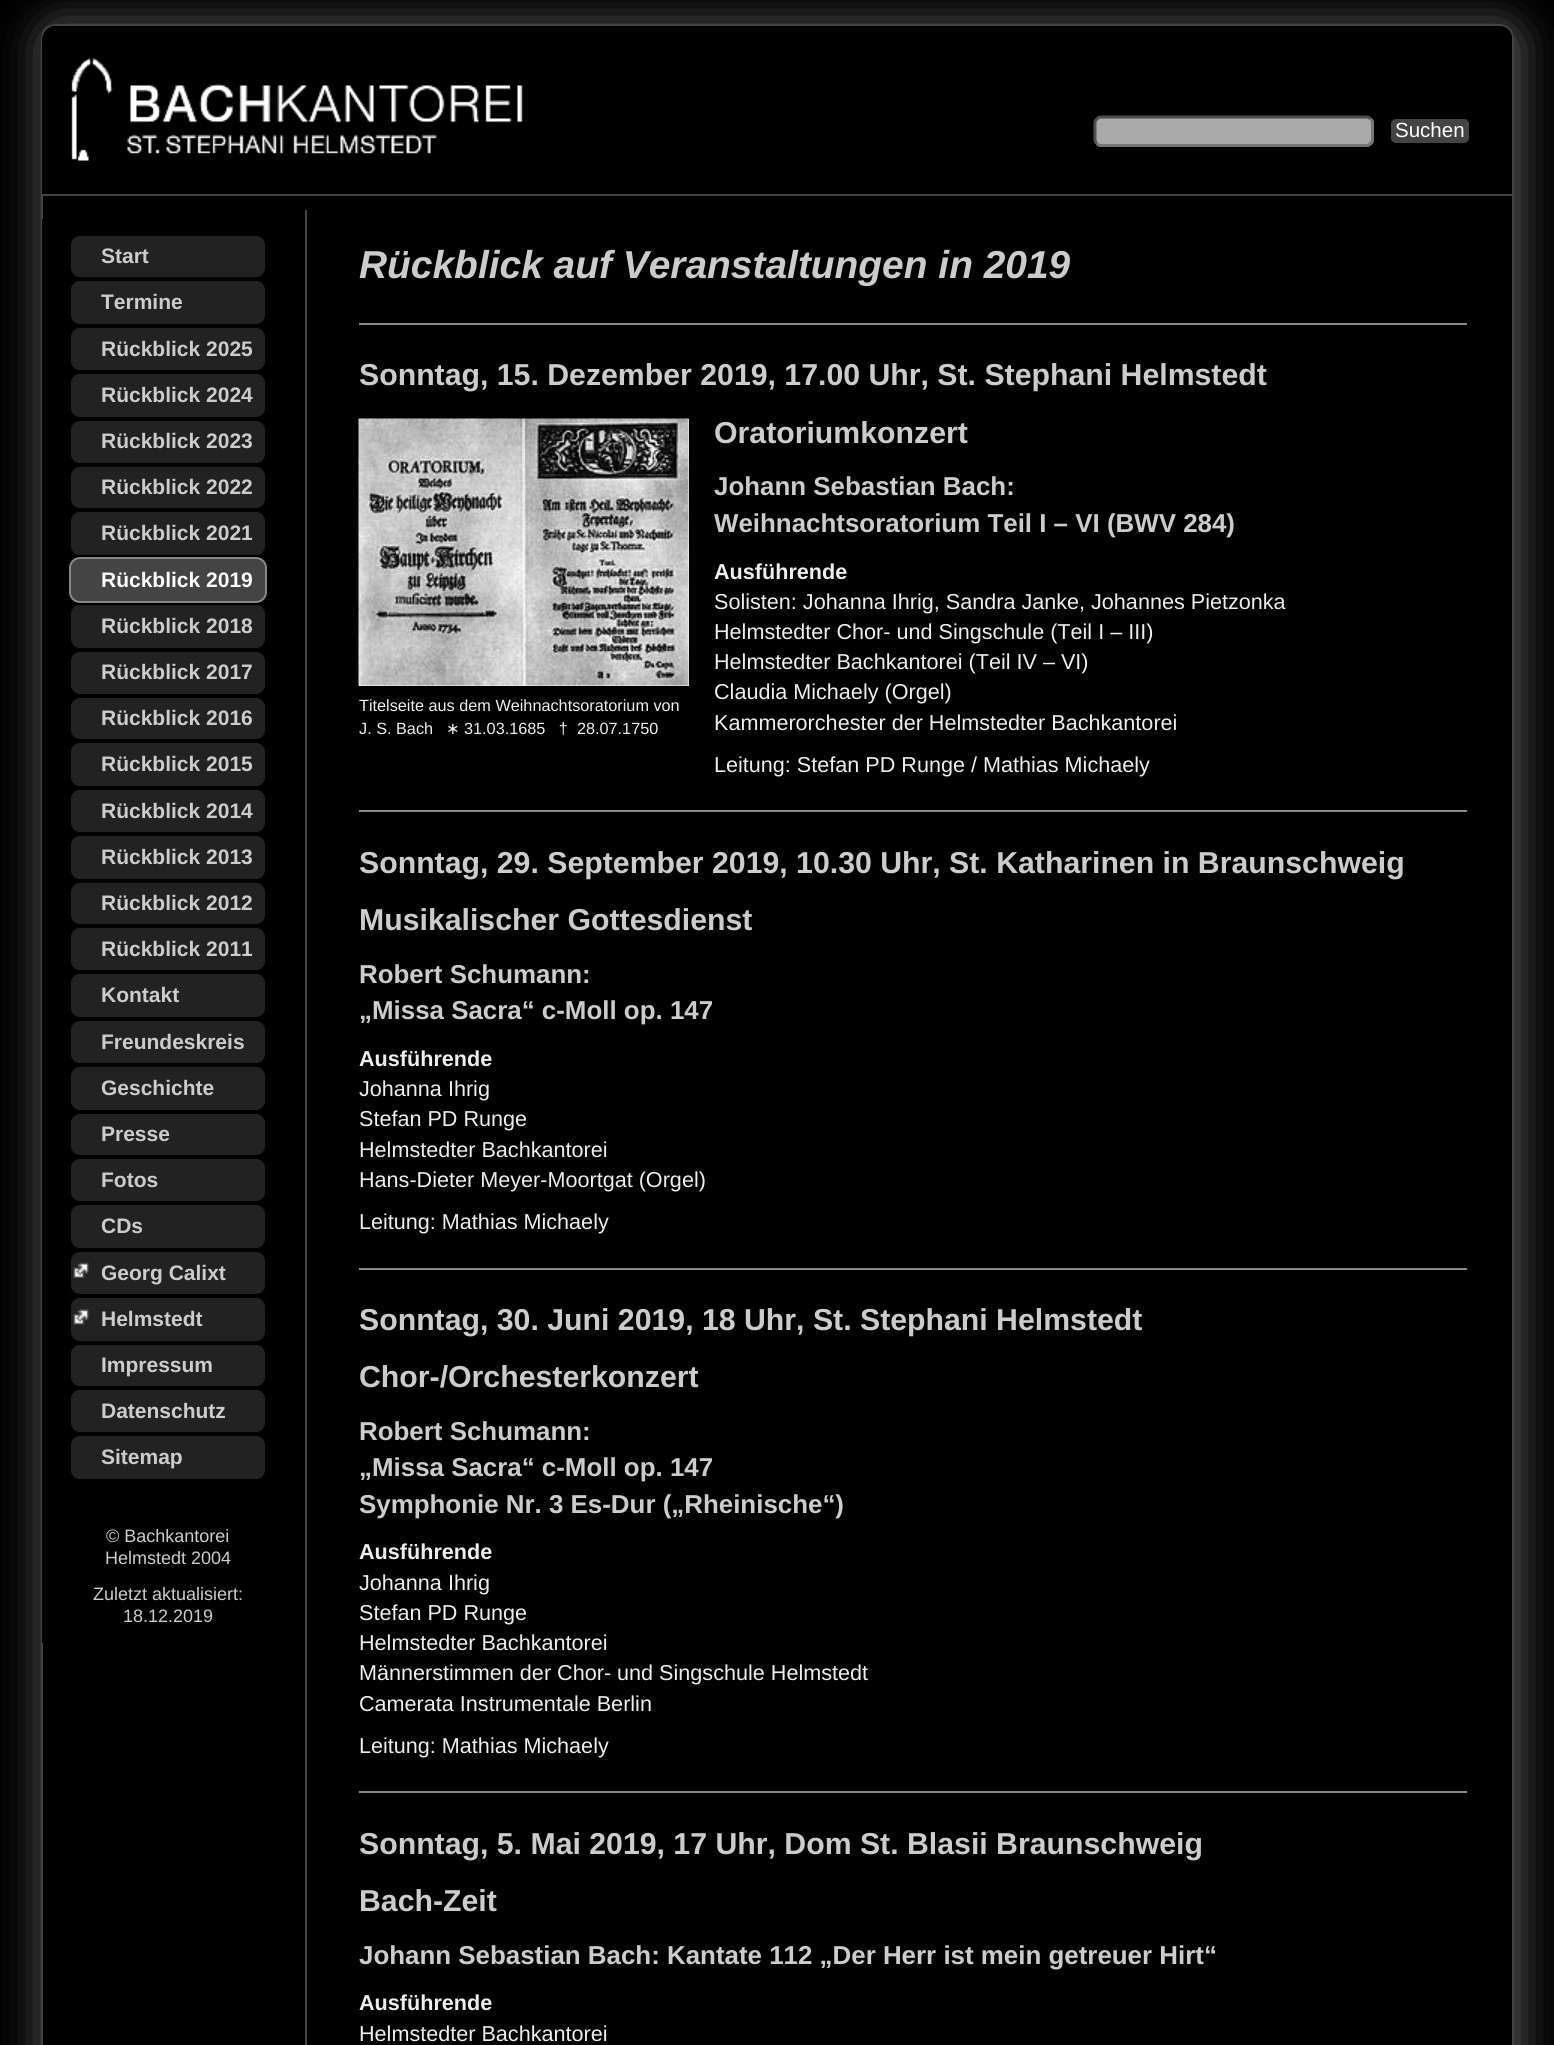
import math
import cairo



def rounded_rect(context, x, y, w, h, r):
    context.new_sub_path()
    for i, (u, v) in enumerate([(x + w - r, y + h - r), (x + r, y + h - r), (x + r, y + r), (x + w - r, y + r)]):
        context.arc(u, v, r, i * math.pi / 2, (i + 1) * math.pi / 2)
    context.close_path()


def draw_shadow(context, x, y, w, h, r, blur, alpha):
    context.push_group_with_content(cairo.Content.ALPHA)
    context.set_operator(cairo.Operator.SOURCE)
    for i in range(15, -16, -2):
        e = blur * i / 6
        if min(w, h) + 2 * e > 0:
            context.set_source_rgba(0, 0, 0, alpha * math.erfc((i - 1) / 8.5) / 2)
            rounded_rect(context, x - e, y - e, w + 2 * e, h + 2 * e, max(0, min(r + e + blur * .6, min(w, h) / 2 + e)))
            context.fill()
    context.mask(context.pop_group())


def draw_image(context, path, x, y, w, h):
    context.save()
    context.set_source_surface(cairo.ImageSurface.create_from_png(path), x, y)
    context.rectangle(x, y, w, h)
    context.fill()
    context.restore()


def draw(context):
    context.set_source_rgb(0, 0, 0)
    context.paint()
    context.save()
    context.set_fill_rule(cairo.FillRule.EVEN_ODD)
    context.new_path()
    context.move_to(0, 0)
    context.line_to(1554, 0)
    context.line_to(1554, 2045)
    context.line_to(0, 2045)
    context.close_path()
    context.move_to(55, 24)
    context.line_to(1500, 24)
    context.curve_to(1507.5, 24, 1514, 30.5, 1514, 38)
    context.line_to(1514, 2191)
    context.curve_to(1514, 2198.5, 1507.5, 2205, 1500, 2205)
    context.line_to(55, 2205)
    context.curve_to(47.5, 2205, 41, 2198.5, 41, 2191)
    context.line_to(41, 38)
    context.curve_to(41, 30.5, 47.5, 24, 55, 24)
    context.close_path()
    context.clip()
    context.set_source_rgb(102 / 255, 102 / 255, 102 / 255)
    draw_shadow(context, 44, 27, 1473, 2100, 14, 22.5, 1)
    context.restore()
    rounded_rect(context, 42, 25, 1471, 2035, 13)
    context.set_source_rgb(68 / 255, 68 / 255, 68 / 255)
    context.stroke()
    context.set_source_rgb(0, 0, 0)
    context.new_path()
    context.move_to(56, 26)
    context.line_to(1498, 26)
    context.curve_to(1505.5, 26, 1512, 32.5, 1512, 40)
    context.line_to(1512, 195)
    context.line_to(42, 195)
    context.line_to(42, 40)
    context.curve_to(42, 32.5, 48.5, 26, 56, 26)
    context.close_path()
    context.fill()
    draw_image(context, "images/1.png", 71, 58, 452, 103)
    context.set_source_rgb(68 / 255, 68 / 255, 68 / 255)
    context.rectangle(42, 194, 1470, 2)
    context.fill()
    context.set_source_rgb(170 / 255, 170 / 255, 170 / 255)
    rounded_rect(context, 1094, 116, 280, 31, 8)
    context.fill()
    context.new_path()
    context.move_to(1370.5, 119)
    context.curve_to(1372, 120, 1372.5, 121.5, 1372.5, 123)
    context.line_to(1372.5, 139.5)
    context.curve_to(1372.5, 141, 1372, 142.5, 1370.5, 143.5)
    context.curve_to(1369.5, 145, 1368, 145.5, 1366.5, 145.5)
    context.line_to(1101, 145.5)
    context.curve_to(1099.5, 145.5, 1098, 145, 1097, 143.5)
    context.set_source_rgb(118 / 255, 118 / 255, 118 / 255)
    context.set_line_width(3)
    context.stroke()
    context.new_path()
    context.move_to(1097, 143.5)
    context.curve_to(1095.5, 142.5, 1095, 141, 1095, 139.5)
    context.line_to(1095, 123)
    context.curve_to(1095, 121.5, 1095.5, 120, 1097, 119)
    context.curve_to(1098, 117.5, 1099.5, 117, 1101, 117)
    context.line_to(1366.5, 117)
    context.curve_to(1368, 117, 1369.5, 117.5, 1370.5, 119)
    context.set_source_rgb(79 / 255, 79 / 255, 79 / 255)
    context.stroke()
    context.set_source_rgb(68 / 255, 68 / 255, 68 / 255)
    rounded_rect(context, 1389.5, 117.5, 81, 27, 6.5)
    context.fill_preserve()
    context.set_source_rgb(0, 0, 0)
    context.stroke()
    context.rectangle(42, 219, 1, 1424)
    context.fill()
    context.set_source_rgb(34 / 255, 34 / 255, 34 / 255)
    rounded_rect(context, 70, 235, 196, 43, 10)
    context.fill_preserve()
    context.set_source_rgb(0, 0, 0)
    context.set_line_width(2)
    context.stroke()
    context.set_source_rgb(34 / 255, 34 / 255, 34 / 255)
    rounded_rect(context, 70, 280, 196, 45, 10)
    context.fill_preserve()
    context.set_source_rgb(0, 0, 0)
    context.stroke()
    context.set_source_rgb(34 / 255, 34 / 255, 34 / 255)
    rounded_rect(context, 70, 327, 196, 44, 10)
    context.fill_preserve()
    context.set_source_rgb(0, 0, 0)
    context.stroke()
    context.set_source_rgb(34 / 255, 34 / 255, 34 / 255)
    rounded_rect(context, 70, 373, 196, 45, 10)
    context.fill_preserve()
    context.set_source_rgb(0, 0, 0)
    context.stroke()
    context.set_source_rgb(34 / 255, 34 / 255, 34 / 255)
    rounded_rect(context, 70, 420, 196, 44, 10)
    context.fill_preserve()
    context.set_source_rgb(0, 0, 0)
    context.stroke()
    context.set_source_rgb(34 / 255, 34 / 255, 34 / 255)
    rounded_rect(context, 70, 466, 196, 43, 10)
    context.fill_preserve()
    context.set_source_rgb(0, 0, 0)
    context.stroke()
    context.set_source_rgb(34 / 255, 34 / 255, 34 / 255)
    rounded_rect(context, 70, 511, 196, 45, 10)
    context.fill_preserve()
    context.set_source_rgb(0, 0, 0)
    context.stroke()
    context.set_source_rgb(68 / 255, 68 / 255, 68 / 255)
    rounded_rect(context, 70, 558, 196, 44, 10)
    context.fill_preserve()
    context.set_source_rgb(136 / 255, 136 / 255, 136 / 255)
    context.stroke()
    context.set_source_rgb(34 / 255, 34 / 255, 34 / 255)
    rounded_rect(context, 70, 604, 196, 45, 10)
    context.fill_preserve()
    context.set_source_rgb(0, 0, 0)
    context.stroke()
    context.set_source_rgb(34 / 255, 34 / 255, 34 / 255)
    rounded_rect(context, 70, 651, 196, 44, 10)
    context.fill_preserve()
    context.set_source_rgb(0, 0, 0)
    context.stroke()
    context.set_source_rgb(34 / 255, 34 / 255, 34 / 255)
    rounded_rect(context, 70, 697, 196, 43, 10)
    context.fill_preserve()
    context.set_source_rgb(0, 0, 0)
    context.stroke()
    context.set_source_rgb(34 / 255, 34 / 255, 34 / 255)
    rounded_rect(context, 70, 742, 196, 45, 10)
    context.fill_preserve()
    context.set_source_rgb(0, 0, 0)
    context.stroke()
    context.set_source_rgb(34 / 255, 34 / 255, 34 / 255)
    rounded_rect(context, 70, 789, 196, 44, 10)
    context.fill_preserve()
    context.set_source_rgb(0, 0, 0)
    context.stroke()
    context.set_source_rgb(34 / 255, 34 / 255, 34 / 255)
    rounded_rect(context, 70, 835, 196, 45, 10)
    context.fill_preserve()
    context.set_source_rgb(0, 0, 0)
    context.stroke()
    context.set_source_rgb(34 / 255, 34 / 255, 34 / 255)
    rounded_rect(context, 70, 882, 196, 43, 10)
    context.fill_preserve()
    context.set_source_rgb(0, 0, 0)
    context.stroke()
    context.set_source_rgb(34 / 255, 34 / 255, 34 / 255)
    rounded_rect(context, 70, 927, 196, 44, 10)
    context.fill_preserve()
    context.set_source_rgb(0, 0, 0)
    context.stroke()
    context.set_source_rgb(34 / 255, 34 / 255, 34 / 255)
    rounded_rect(context, 70, 973, 196, 45, 10)
    context.fill_preserve()
    context.set_source_rgb(0, 0, 0)
    context.stroke()
    context.set_source_rgb(34 / 255, 34 / 255, 34 / 255)
    rounded_rect(context, 70, 1020, 196, 44, 10)
    context.fill_preserve()
    context.set_source_rgb(0, 0, 0)
    context.stroke()
    context.set_source_rgb(34 / 255, 34 / 255, 34 / 255)
    rounded_rect(context, 70, 1066, 196, 45, 10)
    context.fill_preserve()
    context.set_source_rgb(0, 0, 0)
    context.stroke()
    context.set_source_rgb(34 / 255, 34 / 255, 34 / 255)
    rounded_rect(context, 70, 1113, 196, 43, 10)
    context.fill_preserve()
    context.set_source_rgb(0, 0, 0)
    context.stroke()
    context.set_source_rgb(34 / 255, 34 / 255, 34 / 255)
    rounded_rect(context, 70, 1158, 196, 44, 10)
    context.fill_preserve()
    context.set_source_rgb(0, 0, 0)
    context.stroke()
    context.set_source_rgb(34 / 255, 34 / 255, 34 / 255)
    rounded_rect(context, 70, 1204, 196, 45, 10)
    context.fill_preserve()
    context.set_source_rgb(0, 0, 0)
    context.stroke()
    context.set_source_rgb(34 / 255, 34 / 255, 34 / 255)
    rounded_rect(context, 69, 1250, 198, 46, 11)
    context.fill()
    draw_image(context, "images/2.png", 73, 1262, 16, 16)
    rounded_rect(context, 70, 1251, 196, 44, 10)
    context.set_source_rgb(0, 0, 0)
    context.stroke()
    context.set_source_rgb(34 / 255, 34 / 255, 34 / 255)
    rounded_rect(context, 69, 1296, 198, 47, 11)
    context.fill()
    draw_image(context, "images/3.png", 73, 1309, 16, 16)
    rounded_rect(context, 70, 1297, 196, 45, 10)
    context.set_source_rgb(0, 0, 0)
    context.stroke()
    context.set_source_rgb(34 / 255, 34 / 255, 34 / 255)
    rounded_rect(context, 70, 1344, 196, 43, 10)
    context.fill_preserve()
    context.set_source_rgb(0, 0, 0)
    context.stroke()
    context.set_source_rgb(34 / 255, 34 / 255, 34 / 255)
    rounded_rect(context, 70, 1389, 196, 44, 10)
    context.fill_preserve()
    context.set_source_rgb(0, 0, 0)
    context.stroke()
    context.set_source_rgb(34 / 255, 34 / 255, 34 / 255)
    rounded_rect(context, 70, 1435, 196, 45, 10)
    context.fill_preserve()
    context.set_source_rgb(0, 0, 0)
    context.stroke()
    context.set_source_rgb(68 / 255, 68 / 255, 68 / 255)
    context.rectangle(305, 210, 2, 1835)
    context.fill()
    context.set_source_rgb(136 / 255, 136 / 255, 136 / 255)
    context.rectangle(359, 323, 1108, 2)
    context.fill()
    context.set_source_rgb(1, 1, 1)
    context.rectangle(359, 419, 330, 267)
    context.fill()
    draw_image(context, "images/4.png", 358, 418, 331, 268)
    context.set_source_rgb(136 / 255, 136 / 255, 136 / 255)
    context.rectangle(359, 810, 1108, 2)
    context.fill()
    context.rectangle(359, 1268, 1108, 2)
    context.fill()
    context.rectangle(359, 1791, 1108, 2)
    context.fill()
    context.select_font_face("Liberation Sans")
    context.set_font_size(20.5)
    context.set_source_rgb(1, 1, 1)
    context.move_to(1395, 137)
    context.show_text("Suchen")
    context.select_font_face("Liberation Sans", cairo.FontSlant.NORMAL, cairo.FontWeight.BOLD)
    context.set_font_size(21)
    context.set_source_rgb(204 / 255, 204 / 255, 204 / 255)
    context.move_to(101, 263)
    context.show_text("Start")
    context.move_to(101, 309)
    context.show_text("Termine")
    context.move_to(101, 356)
    context.show_text("Rückblick 2025")
    context.move_to(101, 402)
    context.show_text("Rückblick 2024")
    context.move_to(101, 448)
    context.show_text("Rückblick 2023")
    context.move_to(101, 494)
    context.show_text("Rückblick 2022")
    context.move_to(101, 540)
    context.show_text("Rückblick 2021")
    context.set_source_rgb(1, 1, 1)
    context.move_to(101, 587)
    context.show_text("Rückblick 2019")
    context.set_source_rgb(204 / 255, 204 / 255, 204 / 255)
    context.move_to(101, 633)
    context.show_text("Rückblick 2018")
    context.move_to(101, 679)
    context.show_text("Rückblick 2017")
    context.move_to(101, 725)
    context.show_text("Rückblick 2016")
    context.move_to(101, 771)
    context.show_text("Rückblick 2015")
    context.move_to(101, 818)
    context.show_text("Rückblick 2014")
    context.move_to(101, 864)
    context.show_text("Rückblick 2013")
    context.move_to(101, 910)
    context.show_text("Rückblick 2012")
    context.move_to(101, 956)
    context.show_text("Rückblick 2011")
    context.move_to(101, 1002)
    context.show_text("Kontakt")
    context.move_to(101, 1049)
    context.show_text("Freundeskreis")
    context.move_to(101, 1095)
    context.show_text("Geschichte")
    context.move_to(101, 1141)
    context.show_text("Presse")
    context.move_to(101, 1187)
    context.show_text("Fotos")
    context.move_to(101, 1233)
    context.show_text("CDs")
    context.move_to(101, 1280)
    context.show_text("Georg Calixt")
    context.move_to(101, 1326)
    context.show_text("Helmstedt")
    context.move_to(101, 1372)
    context.show_text("Impressum")
    context.move_to(101, 1418)
    context.show_text("Datenschutz")
    context.move_to(101, 1464)
    context.show_text("Sitemap")
    context.select_font_face("Liberation Sans")
    context.set_font_size(18)
    context.move_to(106, 1542)
    context.show_text("© Bachkantorei")
    context.move_to(105, 1564)
    context.show_text("Helmstedt 2004")
    context.move_to(93, 1600)
    context.show_text("Zuletzt aktualisiert:")
    context.move_to(123, 1622)
    context.show_text("18.12.2019")
    context.select_font_face("Liberation Sans", cairo.FontSlant.ITALIC, cairo.FontWeight.BOLD)
    context.set_font_size(38.9)
    context.move_to(359, 278)
    context.show_text("Rückblick auf Veranstaltungen in 2019")
    context.select_font_face("Liberation Sans", cairo.FontSlant.NORMAL, cairo.FontWeight.BOLD)
    context.set_font_size(30.25)
    context.move_to(359, 385)
    context.show_text("Sonntag, 15. Dezember 2019, 17.00 Uhr, St. Stephani Helmstedt")
    context.move_to(714, 443)
    context.show_text("Oratoriumkonzert")
    context.set_font_size(25.9)
    context.move_to(714, 495)
    context.show_text("Johann Sebastian Bach:")
    context.move_to(714, 532)
    context.show_text("Weihnachtsoratorium Teil I – VI (BWV 284)")
    context.select_font_face("Liberation Sans")
    context.set_font_size(16.25)
    context.set_source_rgb(238 / 255, 238 / 255, 238 / 255)
    context.move_to(359, 711)
    context.show_text("Titelseite aus dem Weihnachtsoratorium von")
    context.move_to(359, 734)
    context.show_text("J. S. Bach")
    context.select_font_face("DejaVu Sans")
    context.move_to(446, 734)
    context.show_text("∗")
    context.select_font_face("Liberation Sans")
    context.move_to(464, 734)
    context.show_text("31.03.1685   †  28.07.1750")
    context.select_font_face("Liberation Sans", cairo.FontSlant.NORMAL, cairo.FontWeight.BOLD)
    context.set_font_size(21.6)
    context.move_to(714, 579)
    context.show_text("Ausführende")
    context.select_font_face("Liberation Sans")
    context.move_to(714, 609)
    context.show_text("Solisten: Johanna Ihrig, Sandra Janke, Johannes Pietzonka")
    context.move_to(714, 639)
    context.show_text("Helmstedter Chor- und Singschule (Teil I – III)")
    context.move_to(714, 669)
    context.show_text("Helmstedter Bachkantorei (Teil IV – VI)")
    context.move_to(714, 699)
    context.show_text("Claudia Michaely (Orgel)")
    context.move_to(714, 730)
    context.show_text("Kammerorchester der Helmstedter Bachkantorei")
    context.move_to(714, 772)
    context.show_text("Leitung: Stefan PD Runge / Mathias Michaely")
    context.select_font_face("Liberation Sans", cairo.FontSlant.NORMAL, cairo.FontWeight.BOLD)
    context.set_font_size(30.25)
    context.set_source_rgb(204 / 255, 204 / 255, 204 / 255)
    context.move_to(359, 873)
    context.show_text("Sonntag, 29. September 2019, 10.30 Uhr, St. Katharinen in Braunschweig")
    context.move_to(359, 930)
    context.show_text("Musikalischer Gottesdienst")
    context.set_font_size(25.9)
    context.move_to(359, 983)
    context.show_text("Robert Schumann:")
    context.move_to(359, 1019)
    context.show_text("„Missa Sacra“ c-Moll op. 147")
    context.set_font_size(21.6)
    context.set_source_rgb(238 / 255, 238 / 255, 238 / 255)
    context.move_to(359, 1066)
    context.show_text("Ausführende")
    context.select_font_face("Liberation Sans")
    context.move_to(359, 1096)
    context.show_text("Johanna Ihrig")
    context.move_to(359, 1126)
    context.show_text("Stefan PD Runge")
    context.move_to(359, 1157)
    context.show_text("Helmstedter Bachkantorei")
    context.move_to(359, 1187)
    context.show_text("Hans-Dieter Meyer-Moortgat (Orgel)")
    context.move_to(359, 1229)
    context.show_text("Leitung: Mathias Michaely")
    context.select_font_face("Liberation Sans", cairo.FontSlant.NORMAL, cairo.FontWeight.BOLD)
    context.set_font_size(30.25)
    context.set_source_rgb(204 / 255, 204 / 255, 204 / 255)
    context.move_to(359, 1330)
    context.show_text("Sonntag, 30. Juni 2019, 18 Uhr, St. Stephani Helmstedt")
    context.move_to(359, 1387)
    context.show_text("Chor-/Orchesterkonzert")
    context.set_font_size(25.9)
    context.move_to(359, 1440)
    context.show_text("Robert Schumann:")
    context.move_to(359, 1476)
    context.show_text("„Missa Sacra“ c-Moll op. 147")
    context.move_to(359, 1513)
    context.show_text("Symphonie Nr. 3 Es-Dur („Rheinische“)")
    context.set_font_size(21.6)
    context.set_source_rgb(238 / 255, 238 / 255, 238 / 255)
    context.move_to(359, 1559)
    context.show_text("Ausführende")
    context.select_font_face("Liberation Sans")
    context.move_to(359, 1590)
    context.show_text("Johanna Ihrig")
    context.move_to(359, 1620)
    context.show_text("Stefan PD Runge")
    context.move_to(359, 1650)
    context.show_text("Helmstedter Bachkantorei")
    context.move_to(359, 1680)
    context.show_text("Männerstimmen der Chor- und Singschule Helmstedt")
    context.move_to(359, 1711)
    context.show_text("Camerata Instrumentale Berlin")
    context.move_to(359, 1753)
    context.show_text("Leitung: Mathias Michaely")
    context.select_font_face("Liberation Sans", cairo.FontSlant.NORMAL, cairo.FontWeight.BOLD)
    context.set_font_size(30.25)
    context.set_source_rgb(204 / 255, 204 / 255, 204 / 255)
    context.move_to(359, 1854)
    context.show_text("Sonntag, 5. Mai 2019, 17 Uhr, Dom St. Blasii Braunschweig")
    context.move_to(359, 1911)
    context.show_text("Bach-Zeit")
    context.set_font_size(25.9)
    context.move_to(359, 1964)
    context.show_text("Johann Sebastian Bach: Kantate 112 „Der Herr ist mein getreuer Hirt“")
    context.set_font_size(21.6)
    context.set_source_rgb(238 / 255, 238 / 255, 238 / 255)
    context.move_to(359, 2010)
    context.show_text("Ausführende")
    context.select_font_face("Liberation Sans")
    context.move_to(359, 2041)
    context.show_text("Helmstedter Bachkantorei")


surface = cairo.ImageSurface(cairo.Format.RGB24, 1554, 2045)
context = cairo.Context(surface)
options = cairo.FontOptions()
options.set_hint_metrics(cairo.HintMetrics.OFF)
options.set_hint_style(cairo.HintStyle.NONE)
context.set_font_options(options)
context.set_miter_limit(4)
draw(context)
surface.write_to_png("out.png")
